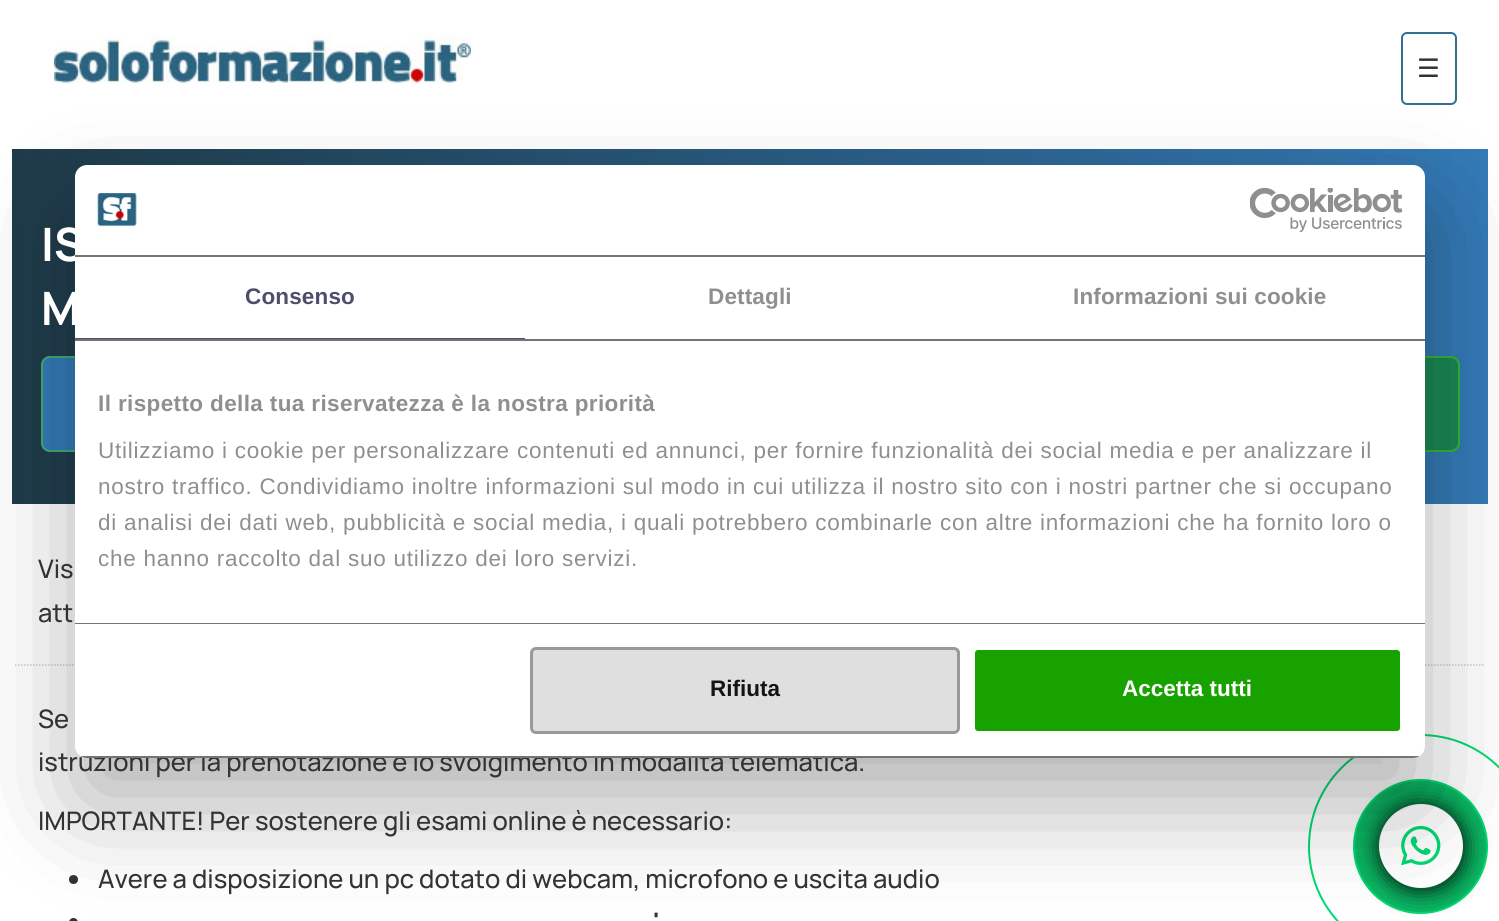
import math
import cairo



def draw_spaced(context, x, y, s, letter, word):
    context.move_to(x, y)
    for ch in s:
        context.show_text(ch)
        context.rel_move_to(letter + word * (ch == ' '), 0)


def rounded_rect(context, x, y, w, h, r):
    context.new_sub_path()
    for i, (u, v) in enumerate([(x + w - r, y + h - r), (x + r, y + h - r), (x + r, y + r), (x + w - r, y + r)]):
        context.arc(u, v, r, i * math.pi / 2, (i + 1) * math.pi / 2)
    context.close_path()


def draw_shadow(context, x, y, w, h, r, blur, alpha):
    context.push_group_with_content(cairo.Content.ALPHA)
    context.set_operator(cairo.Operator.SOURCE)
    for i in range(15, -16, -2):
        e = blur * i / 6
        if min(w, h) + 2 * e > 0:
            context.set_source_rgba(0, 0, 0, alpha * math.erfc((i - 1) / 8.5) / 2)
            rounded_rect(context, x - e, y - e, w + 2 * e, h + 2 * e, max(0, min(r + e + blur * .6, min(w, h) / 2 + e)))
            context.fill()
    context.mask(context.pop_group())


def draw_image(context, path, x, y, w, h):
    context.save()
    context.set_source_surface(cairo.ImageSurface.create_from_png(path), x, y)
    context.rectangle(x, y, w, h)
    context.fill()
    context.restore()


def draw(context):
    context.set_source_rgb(1, 1, 1)
    context.paint()
    draw_image(context, "images/1.png", 54, 34, 417, 49)
    rounded_rect(context, 1402, 33, 54, 71, 5)
    context.set_source_rgb(49 / 255, 112 / 255, 143 / 255)
    context.stroke()
    gradient = cairo.LinearGradient(1488, 326, 12, 326)
    gradient.add_color_stop_rgba(0, 51 / 255, 122 / 255, 183 / 255, 1)
    gradient.add_color_stop_rgba(1, 31 / 255, 59 / 255, 73 / 255, 1)
    context.set_source(gradient)
    context.rectangle(12, 149, 1476, 355)
    context.fill()
    context.set_source_rgb(51 / 255, 122 / 255, 183 / 255)
    rounded_rect(context, 41, 356, 333, 96, 9)
    context.fill()
    rounded_rect(context, 42, 357, 331, 94, 8)
    context.set_source_rgba(96 / 255, 1, 0, 0.37)
    context.stroke()
    context.set_source_rgb(25 / 255, 135 / 255, 84 / 255)
    rounded_rect(context, 1154, 356, 306, 96, 9)
    context.fill()
    rounded_rect(context, 1155, 357, 304, 94, 8)
    context.set_source_rgba(96 / 255, 1, 0, 0.37)
    context.stroke()
    context.new_path()
    context.move_to(15, 665)
    context.line_to(1485, 665)
    context.set_source_rgb(204 / 255, 204 / 255, 204 / 255)
    context.set_line_width(1.5)
    context.set_dash([1.5, 1.5])
    context.stroke()
    context.set_source_rgb(51 / 255, 51 / 255, 51 / 255)
    context.arc(73.5, 879.5, 4.5, 0, 2 * math.pi)
    context.fill()
    rounded_rect(context, 69, 918, 9, 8, 4.5)
    context.fill()
    context.arc(1420.5, 846.5, 111.5, 0, 2 * math.pi)
    context.set_source_rgb(0, 218 / 255, 112 / 255)
    context.set_line_width(2)
    context.set_dash([])
    context.stroke()
    context.set_source_rgb(11 / 255, 185 / 255, 100 / 255)
    context.arc(1420.5, 846.5, 66.5, 0, 2 * math.pi)
    context.fill_preserve()
    context.set_source_rgb(0, 218 / 255, 112 / 255)
    context.stroke()
    context.set_source_rgb(3 / 255, 41 / 255, 22 / 255)
    draw_shadow(context, 1377, 803, 90, 90, 45, 10.5, 1)
    context.set_source_rgb(1, 1, 1)
    context.arc(1421, 846, 42, 0, 2 * math.pi)
    context.fill()
    draw_image(context, "images/4.png", 1401, 825, 40, 41)
    context.set_source_rgb(0, 0, 0)
    draw_shadow(context, 75, 213, 1350, 593, 12, 51, 0.3)
    context.select_font_face("DejaVu Sans")
    context.set_font_size(25.5)
    context.set_source_rgb(51 / 255, 51 / 255, 51 / 255)
    context.move_to(1417, 77)
    context.show_text("☰")
    context.select_font_face("Manrope", cairo.FontSlant.NORMAL, cairo.FontWeight.BOLD)
    context.set_font_size(46)
    context.set_source_rgb(1, 1, 1)
    context.move_to(41, 261)
    context.show_text("IS")
    context.move_to(41, 325)
    context.show_text("M")
    context.select_font_face("Manrope Medium")
    context.set_font_size(25.5)
    context.set_source_rgb(51 / 255, 51 / 255, 51 / 255)
    context.move_to(38, 578)
    context.show_text("Vis")
    context.move_to(38, 622)
    context.show_text("att")
    context.move_to(38, 728)
    context.show_text("Se")
    context.move_to(38, 771)
    context.show_text("istruzioni per la prenotazione e lo svolgimento in modalità telematica.")
    context.move_to(38, 830)
    context.show_text("IMPORTANTE! Per sostenere gli esami online è necessario:")
    context.move_to(98, 888)
    context.show_text("Avere a disposizione un pc dotato di webcam, microfono e uscita audio")
    context.select_font_face("Manrope", cairo.FontSlant.NORMAL, cairo.FontWeight.BOLD)
    context.move_to(653, 931)
    context.show_text("'")
    context.set_source_rgb(1, 1, 1)
    rounded_rect(context, 75, 165, 1350, 593, 12)
    context.fill()
    context.set_source_rgb(116 / 255, 116 / 255, 116 / 255)
    context.rectangle(75, 255, 1350, 2)
    context.fill()
    draw_image(context, "images/2.png", 97, 193, 40, 34)
    draw_image(context, "images/3.png", 1250, 188, 153, 44)
    context.rectangle(75, 339, 1350, 2)
    context.fill()
    context.set_source_rgb(75 / 255, 79 / 255, 109 / 255)
    context.rectangle(75, 338, 450, 1)
    context.fill()
    context.select_font_face("Liberation Sans", cairo.FontSlant.NORMAL, cairo.FontWeight.BOLD)
    context.set_font_size(22.5)
    draw_spaced(context, 245, 304, "Consenso", 0.15, 0)
    context.set_source_rgb(143 / 255, 143 / 255, 143 / 255)
    draw_spaced(context, 708, 304, "Dettagli", 0.15, 0)
    draw_spaced(context, 1073, 304, "Informazioni sui cookie", 0.15, 0)
    context.set_source_rgb(116 / 255, 116 / 255, 116 / 255)
    context.rectangle(75, 623, 1350, 1)
    context.fill()
    context.set_source_rgb(143 / 255, 143 / 255, 143 / 255)
    draw_spaced(context, 98, 411, "Il rispetto della tua riservatezza è la nostra priorità", 0.38, 0)
    context.select_font_face("Liberation Sans")
    draw_spaced(context, 98, 458, "Utilizziamo i cookie per personalizzare contenuti ed annunci, per fornire funzionalità dei social media e per analizzare il", 0.75, 0)
    draw_spaced(context, 98, 494, "nostro traffico. Condividiamo inoltre informazioni sul modo in cui utilizza il nostro sito con i nostri partner che si occupano", 0.75, 0)
    draw_spaced(context, 98, 530, "di analisi dei dati web, pubblicità e social media, i quali potrebbero combinarle con altre informazioni che ha fornito loro o", 0.75, 0)
    draw_spaced(context, 98, 566, "che hanno raccolto dal suo utilizzo dei loro servizi.", 0.75, 0)
    context.save()
    rounded_rect(context, 75, 165, 1350, 593, 12)
    context.clip()
    context.set_source_rgb(116 / 255, 116 / 255, 116 / 255)
    context.rectangle(75, 756, 1350, 2)
    context.fill()
    context.restore()
    context.set_source_rgb(223 / 255, 223 / 255, 223 / 255)
    rounded_rect(context, 531.5, 648.5, 427, 84, 4.5)
    context.fill_preserve()
    context.set_source_rgb(153 / 255, 153 / 255, 153 / 255)
    context.set_line_width(3)
    context.stroke()
    context.select_font_face("Liberation Sans", cairo.FontSlant.NORMAL, cairo.FontWeight.BOLD)
    context.set_source_rgb(20 / 255, 20 / 255, 20 / 255)
    context.move_to(710, 696)
    context.show_text("Rifiuta")
    context.set_source_rgb(24 / 255, 162 / 255, 0)
    rounded_rect(context, 973.5, 648.5, 428, 84, 4.5)
    context.fill_preserve()
    context.set_source_rgb(1, 1, 1)
    context.stroke()
    context.move_to(1122, 696)
    context.show_text("Accetta tutti")


surface = cairo.ImageSurface(cairo.Format.RGB24, 1499, 921)
context = cairo.Context(surface)
options = cairo.FontOptions()
options.set_hint_metrics(cairo.HintMetrics.OFF)
options.set_hint_style(cairo.HintStyle.NONE)
context.set_font_options(options)
context.set_miter_limit(4)
draw(context)
surface.write_to_png("out.png")
